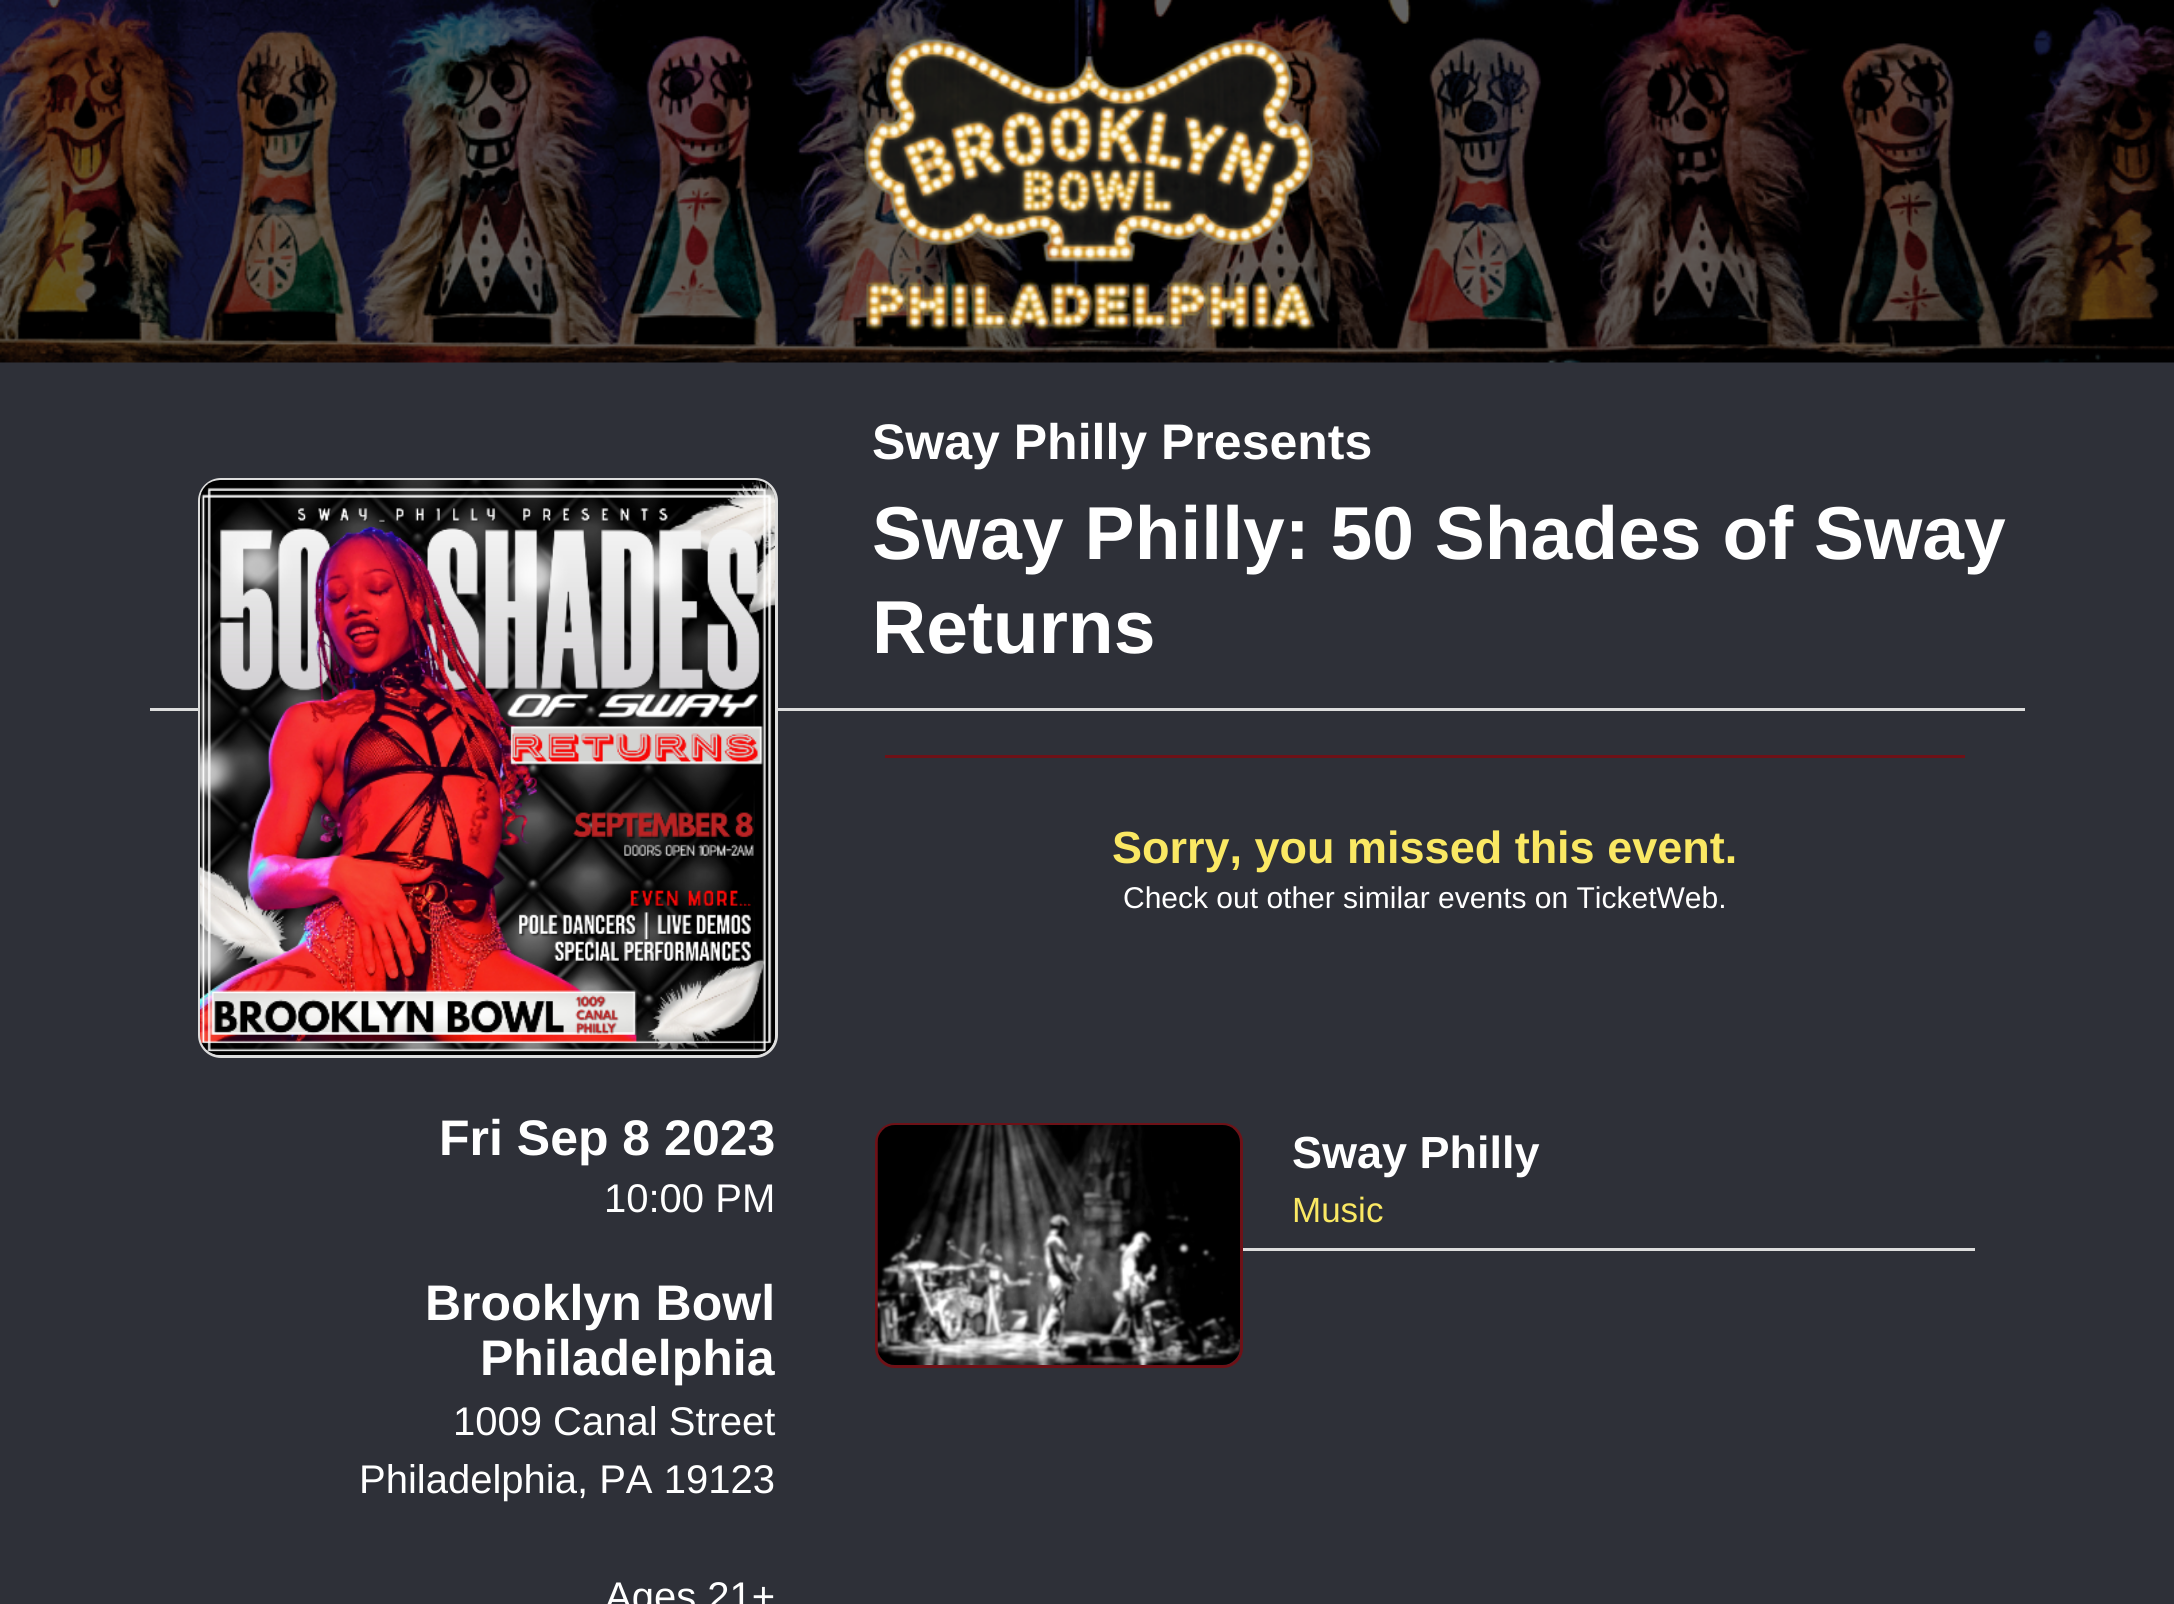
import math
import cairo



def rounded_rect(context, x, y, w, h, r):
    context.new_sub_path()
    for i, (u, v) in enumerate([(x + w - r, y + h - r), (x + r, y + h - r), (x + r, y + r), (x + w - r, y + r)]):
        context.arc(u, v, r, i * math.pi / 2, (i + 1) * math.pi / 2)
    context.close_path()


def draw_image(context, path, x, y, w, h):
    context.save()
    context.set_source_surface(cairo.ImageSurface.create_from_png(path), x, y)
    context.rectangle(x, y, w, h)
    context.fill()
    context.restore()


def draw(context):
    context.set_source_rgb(46 / 255, 48 / 255, 56 / 255)
    context.paint()
    draw_image(context, "images/1.png", 0, 0, 2174, 363)
    context.set_source_rgb(221 / 255, 221 / 255, 221 / 255)
    context.rectangle(150, 708, 1875, 3)
    context.fill()
    context.set_source_rgb(110 / 255, 17 / 255, 23 / 255)
    context.rectangle(885, 755, 1080, 3)
    context.fill()
    rounded_rect(context, 876.5, 1124.5, 365, 242, 18.5)
    context.set_line_width(3)
    context.stroke()
    draw_image(context, "images/2.png", 877, 1125, 363, 240)
    context.set_source_rgb(221 / 255, 221 / 255, 221 / 255)
    context.rectangle(1243, 1248, 732, 3)
    context.fill()
    rounded_rect(context, 199.5, 479.5, 577, 577, 21.5)
    context.stroke()
    draw_image(context, "images/3.png", 200, 480, 575, 575)
    context.select_font_face("Liberation Sans", cairo.FontSlant.NORMAL, cairo.FontWeight.BOLD)
    context.set_font_size(50)
    context.set_source_rgb(1, 1, 1)
    context.move_to(872, 459)
    context.show_text("Sway Philly Presents")
    context.set_font_size(75)
    context.move_to(872, 559)
    context.show_text("Sway Philly: 50 Shades of Sway")
    context.move_to(872, 653)
    context.show_text("Returns")
    context.set_font_size(45)
    context.set_source_rgb(250 / 255, 232 / 255, 99 / 255)
    context.move_to(1112, 863)
    context.show_text("Sorry, you missed this event.")
    context.select_font_face("Liberation Sans")
    context.set_font_size(30)
    context.set_source_rgb(1, 1, 1)
    context.move_to(1123, 908)
    context.show_text("Check out other similar events on TicketWeb.")
    context.select_font_face("Liberation Sans", cairo.FontSlant.NORMAL, cairo.FontWeight.BOLD)
    context.set_font_size(45)
    context.move_to(1292, 1168)
    context.show_text("Sway Philly")
    context.select_font_face("Liberation Sans")
    context.set_font_size(35)
    context.set_source_rgb(250 / 255, 232 / 255, 99 / 255)
    context.move_to(1292, 1222)
    context.show_text("Music")
    context.select_font_face("Liberation Sans", cairo.FontSlant.NORMAL, cairo.FontWeight.BOLD)
    context.set_font_size(50)
    context.set_source_rgb(1, 1, 1)
    context.move_to(439, 1155)
    context.show_text("Fri Sep 8 2023")
    context.select_font_face("Liberation Sans")
    context.set_font_size(40)
    context.move_to(604, 1212)
    context.show_text("10:00 PM")
    context.select_font_face("Liberation Sans", cairo.FontSlant.NORMAL, cairo.FontWeight.BOLD)
    context.set_font_size(50)
    context.move_to(425, 1320)
    context.show_text("Brooklyn Bowl")
    context.move_to(480, 1375)
    context.show_text("Philadelphia")
    context.select_font_face("Liberation Sans")
    context.set_font_size(40)
    context.move_to(453, 1435)
    context.show_text("1009 Canal Street")
    context.move_to(359, 1493)
    context.show_text("Philadelphia, PA 19123")
    context.move_to(605, 1610)
    context.show_text("Ages 21+")


surface = cairo.ImageSurface(cairo.Format.RGB24, 2174, 1604)
context = cairo.Context(surface)
options = cairo.FontOptions()
options.set_hint_metrics(cairo.HintMetrics.OFF)
options.set_hint_style(cairo.HintStyle.NONE)
context.set_font_options(options)
context.set_miter_limit(4)
draw(context)
surface.write_to_png("out.png")
